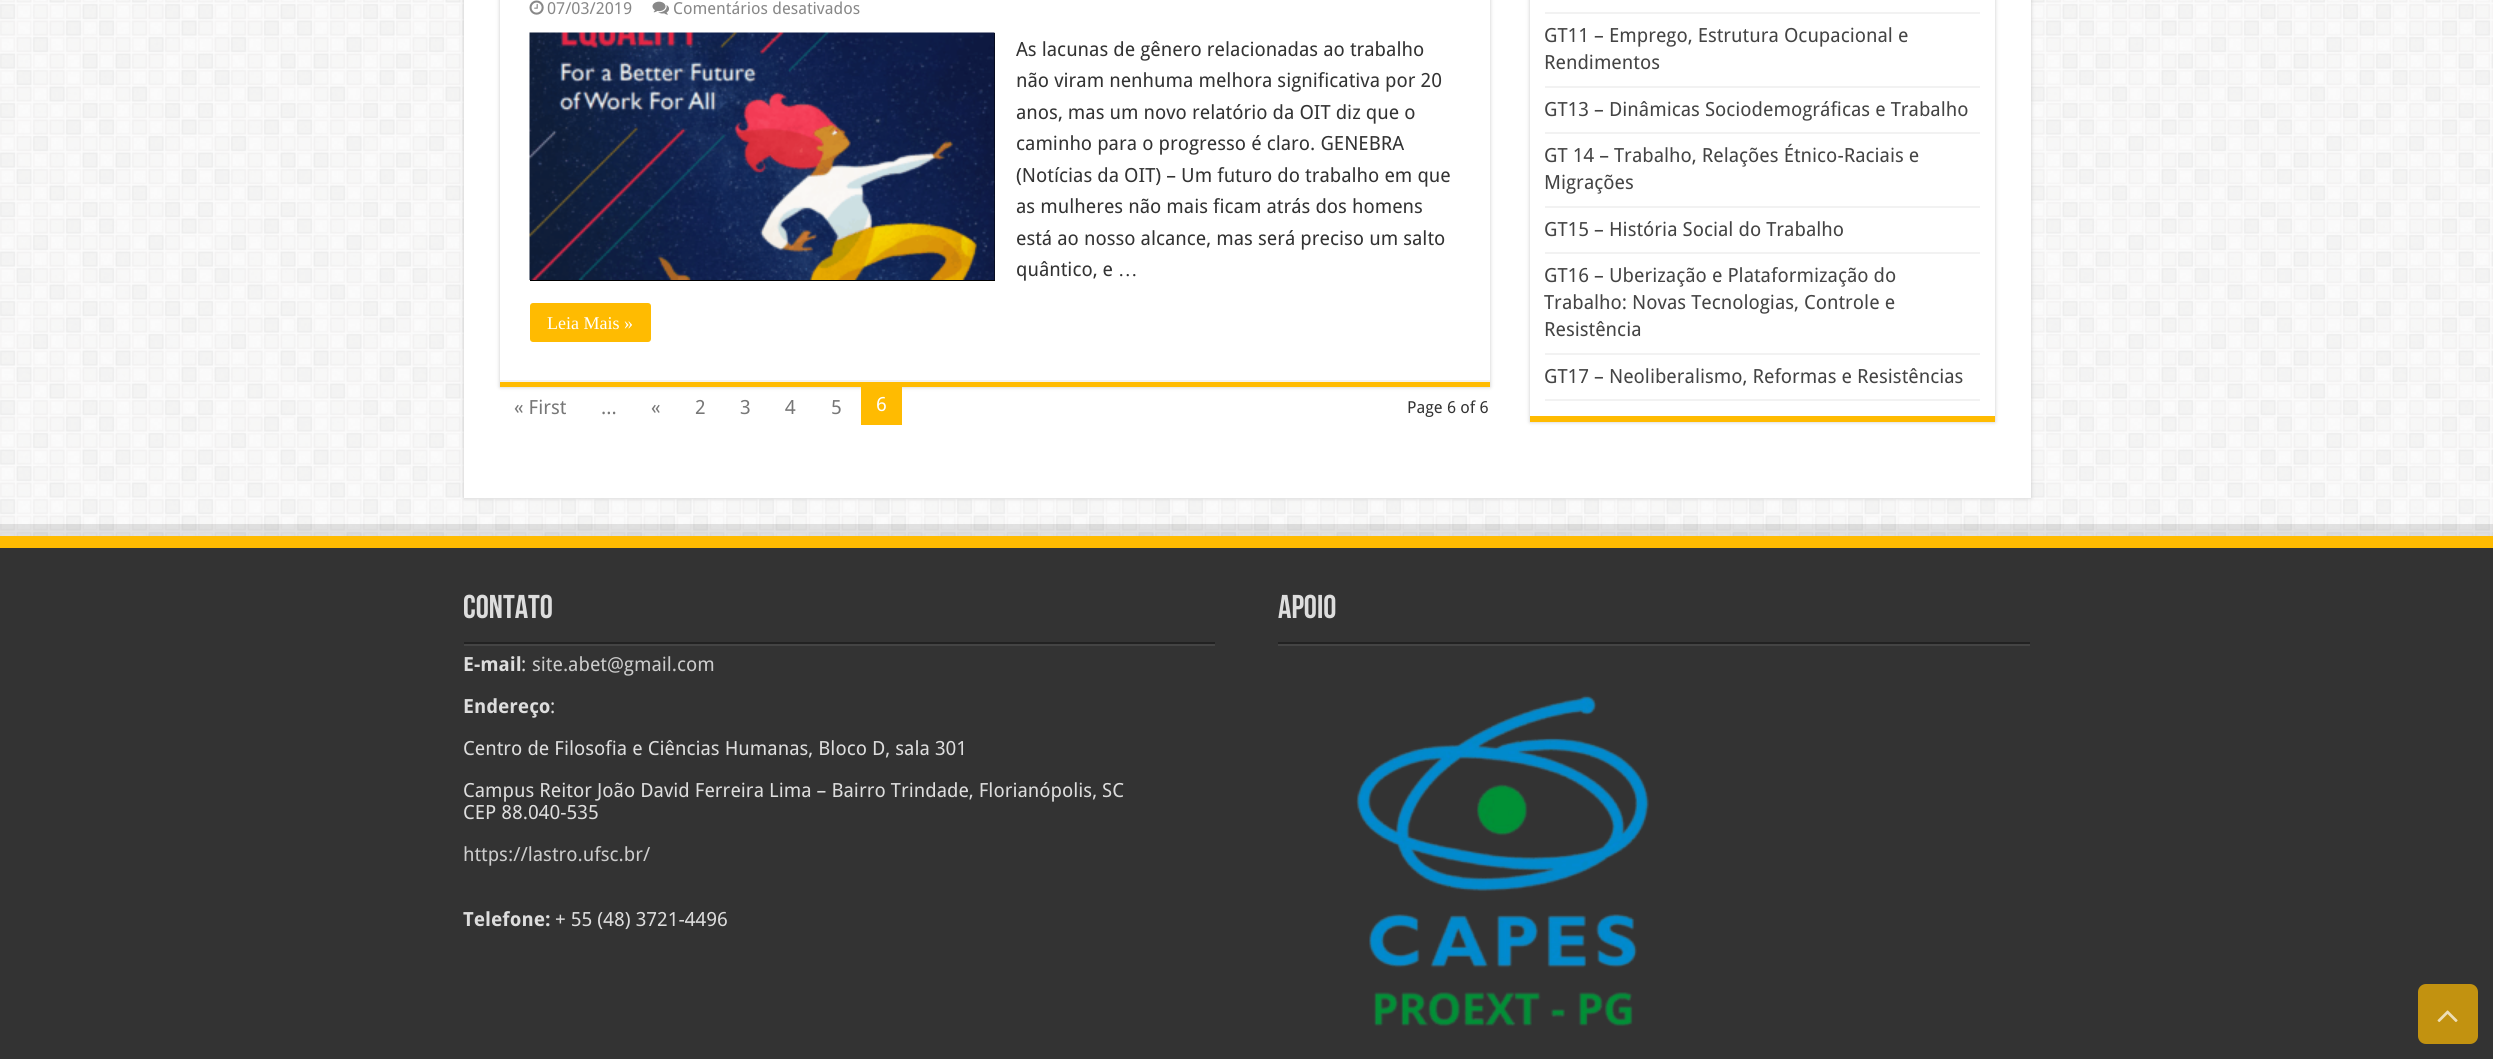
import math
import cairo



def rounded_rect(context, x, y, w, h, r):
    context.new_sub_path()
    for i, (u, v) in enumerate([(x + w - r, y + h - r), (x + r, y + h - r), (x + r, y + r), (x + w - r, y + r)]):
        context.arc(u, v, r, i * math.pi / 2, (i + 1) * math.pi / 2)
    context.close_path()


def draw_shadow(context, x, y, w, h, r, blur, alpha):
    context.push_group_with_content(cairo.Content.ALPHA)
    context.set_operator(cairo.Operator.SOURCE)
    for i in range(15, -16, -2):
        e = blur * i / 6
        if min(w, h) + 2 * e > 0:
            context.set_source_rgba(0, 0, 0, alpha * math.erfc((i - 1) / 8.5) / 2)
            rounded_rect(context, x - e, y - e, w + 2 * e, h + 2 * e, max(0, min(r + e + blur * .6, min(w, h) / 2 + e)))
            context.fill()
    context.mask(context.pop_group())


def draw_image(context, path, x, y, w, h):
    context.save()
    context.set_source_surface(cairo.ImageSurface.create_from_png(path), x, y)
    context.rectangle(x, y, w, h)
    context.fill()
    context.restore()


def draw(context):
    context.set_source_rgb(1, 1, 1)
    context.paint()
    draw_image(context, "images/1.png", 0, 0, 2493, 536)
    context.set_source_rgb(202 / 255, 202 / 255, 202 / 255)
    draw_shadow(context, 464, -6, 1567, 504, 0, 2, 1)
    context.set_source_rgb(1, 1, 1)
    context.rectangle(464, 0, 1567, 498)
    context.fill()
    context.set_source_rgb(202 / 255, 202 / 255, 202 / 255)
    draw_shadow(context, 500, -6, 990, 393, 0, 2, 1)
    context.set_source_rgb(1, 1, 1)
    context.rectangle(500, 0, 990, 380)
    context.fill()
    context.set_source_rgb(1, 187 / 255, 1 / 255)
    context.rectangle(500, 382, 990, 5)
    context.fill()
    context.set_source_rgb(242 / 255, 242 / 255, 242 / 255)
    context.rectangle(500, 380, 990, 2)
    context.fill()
    draw_image(context, "images/2.png", 529, 0, 15, 15)
    draw_image(context, "images/3.png", 652, 1, 17, 14)
    context.set_source_rgb(0, 0, 0)
    context.rectangle(530, 33, 465, 248)
    context.fill()
    draw_image(context, "images/4.png", 529, 32, 466, 248)
    context.set_source_rgb(1, 187 / 255, 1 / 255)
    rounded_rect(context, 530, 303, 121, 39, 3)
    context.fill()
    context.rectangle(861, 387, 41, 38)
    context.fill()
    context.set_source_rgb(202 / 255, 202 / 255, 202 / 255)
    draw_shadow(context, 1530, -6, 465, 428, 0, 2, 1)
    context.set_source_rgb(1, 1, 1)
    context.rectangle(1530, 0, 465, 416)
    context.fill()
    context.set_source_rgb(1, 187 / 255, 1 / 255)
    context.rectangle(1530, 416, 465, 6)
    context.fill()
    context.set_source_rgb(242 / 255, 242 / 255, 242 / 255)
    context.rectangle(1545, 12, 435, 2)
    context.fill()
    context.rectangle(1545, 86, 435, 2)
    context.fill()
    context.rectangle(1545, 132, 435, 2)
    context.fill()
    context.rectangle(1545, 206, 435, 2)
    context.fill()
    context.rectangle(1545, 252, 435, 2)
    context.fill()
    context.rectangle(1545, 353, 435, 2)
    context.fill()
    context.rectangle(1545, 399, 435, 2)
    context.fill()
    context.set_source_rgba(0, 0, 0, 0.1)
    context.rectangle(0, 524, 2493, 12)
    context.fill()
    context.set_source_rgb(51 / 255, 51 / 255, 51 / 255)
    context.rectangle(0, 548, 2493, 511)
    context.fill()
    context.set_source_rgb(1, 187 / 255, 1 / 255)
    context.rectangle(0, 536, 2493, 12)
    context.fill()
    context.set_source_rgb(34 / 255, 34 / 255, 34 / 255)
    context.rectangle(464, 642, 751, 2)
    context.fill()
    context.set_source_rgb(68 / 255, 68 / 255, 68 / 255)
    context.rectangle(464, 644, 751, 2)
    context.fill()
    context.set_source_rgb(34 / 255, 34 / 255, 34 / 255)
    context.rectangle(1278, 642, 752, 2)
    context.fill()
    context.set_source_rgb(68 / 255, 68 / 255, 68 / 255)
    context.rectangle(1278, 644, 752, 2)
    context.fill()
    draw_image(context, "images/5.png", 1356, 695, 293, 331)
    context.set_source_rgb(194 / 255, 146 / 255, 16 / 255)
    rounded_rect(context, 2418, 984, 60, 60, 8)
    context.fill()
    draw_image(context, "images/6.png", 2437, 1010, 21, 12)
    context.select_font_face("Droid Sans")
    context.set_font_size(16.5)
    context.set_source_rgb(136 / 255, 136 / 255, 136 / 255)
    context.move_to(547, 14)
    context.show_text("07/03/2019")
    context.move_to(673, 14)
    context.show_text("Comentários desativados")
    context.set_font_size(19.5)
    context.set_source_rgb(51 / 255, 51 / 255, 51 / 255)
    context.move_to(1016, 56)
    context.show_text("As lacunas de gênero relacionadas ao trabalho")
    context.move_to(1016, 87)
    context.show_text("não viram nenhuma melhora significativa por 20")
    context.move_to(1016, 119)
    context.show_text("anos, mas um novo relatório da OIT diz que o")
    context.move_to(1016, 150)
    context.show_text("caminho para o progresso é claro. GENEBRA")
    context.move_to(1016, 182)
    context.show_text("(Notícias da OIT) – Um futuro do trabalho em que")
    context.move_to(1016, 213)
    context.show_text("as mulheres não mais ficam atrás dos homens")
    context.move_to(1016, 245)
    context.show_text("está ao nosso alcance, mas será preciso um salto")
    context.move_to(1016, 276)
    context.show_text("quântico, e")
    context.select_font_face("Liberation Serif")
    context.move_to(1118, 276)
    context.show_text("…")
    context.set_font_size(18)
    context.set_source_rgb(1, 1, 1)
    context.move_to(547, 329)
    context.show_text("Leia Mais »")
    context.select_font_face("Droid Sans")
    context.set_font_size(19.5)
    context.set_source_rgb(119 / 255, 119 / 255, 119 / 255)
    context.move_to(514, 414)
    context.show_text("« First")
    context.move_to(601, 414)
    context.show_text("...")
    context.move_to(651, 414)
    context.show_text("«")
    context.move_to(695, 414)
    context.show_text("2")
    context.move_to(740, 414)
    context.show_text("3")
    context.move_to(785, 414)
    context.show_text("4")
    context.move_to(831, 414)
    context.show_text("5")
    context.set_source_rgb(1, 1, 1)
    context.move_to(876, 411)
    context.show_text("6")
    context.set_font_size(16.5)
    context.set_source_rgb(51 / 255, 51 / 255, 51 / 255)
    context.move_to(1407, 413)
    context.show_text("Page 6 of 6")
    context.set_font_size(19.5)
    context.set_source_rgb(68 / 255, 68 / 255, 68 / 255)
    context.move_to(1544, 42)
    context.show_text("GT11 – Emprego, Estrutura Ocupacional e")
    context.move_to(1544, 69)
    context.show_text("Rendimentos")
    context.move_to(1544, 116)
    context.show_text("GT13 – Dinâmicas Sociodemográficas e Trabalho")
    context.move_to(1544, 162)
    context.show_text("GT 14 – Trabalho, Relações Étnico-Raciais e")
    context.move_to(1544, 189)
    context.show_text("Migrações")
    context.move_to(1544, 236)
    context.show_text("GT15 – História Social do Trabalho")
    context.move_to(1544, 282)
    context.show_text("GT16 – Uberização e Plataformização do")
    context.move_to(1544, 309)
    context.show_text("Trabalho: Novas Tecnologias, Controle e")
    context.move_to(1544, 336)
    context.show_text("Resistência")
    context.move_to(1544, 383)
    context.show_text("GT17 – Neoliberalismo, Reformas e Resistências")
    context.select_font_face("Bebas Neue", cairo.FontSlant.NORMAL, cairo.FontWeight.BOLD)
    context.set_font_size(33)
    context.set_source_rgb(221 / 255, 221 / 255, 221 / 255)
    context.move_to(463, 618)
    context.show_text("Contato")
    context.select_font_face("Droid Sans", cairo.FontSlant.NORMAL, cairo.FontWeight.BOLD)
    context.set_font_size(19.5)
    context.move_to(463, 671)
    context.show_text("E-mail")
    context.select_font_face("Droid Sans")
    context.move_to(521, 671)
    context.show_text(":")
    context.set_source_rgb(204 / 255, 204 / 255, 204 / 255)
    context.move_to(532, 671)
    context.show_text("site.abet@gmail.com")
    context.select_font_face("Droid Sans", cairo.FontSlant.NORMAL, cairo.FontWeight.BOLD)
    context.set_source_rgb(221 / 255, 221 / 255, 221 / 255)
    context.move_to(463, 713)
    context.show_text("Endereço")
    context.select_font_face("Droid Sans")
    context.move_to(550, 713)
    context.show_text(":")
    context.move_to(463, 755)
    context.show_text("Centro de Filosofia e Ciências Humanas, Bloco D, sala 301")
    context.move_to(463, 797)
    context.show_text("Campus Reitor João David Ferreira Lima – Bairro Trindade, Florianópolis, SC")
    context.move_to(463, 819)
    context.show_text("CEP 88.040-535")
    context.set_source_rgb(204 / 255, 204 / 255, 204 / 255)
    context.move_to(463, 861)
    context.show_text("https://lastro.ufsc.br/")
    context.select_font_face("Droid Sans", cairo.FontSlant.NORMAL, cairo.FontWeight.BOLD)
    context.set_source_rgb(221 / 255, 221 / 255, 221 / 255)
    context.move_to(463, 926)
    context.show_text("Telefone:")
    context.select_font_face("Droid Sans")
    context.move_to(555, 926)
    context.show_text("+ 55 (48) 3721-4496")
    context.select_font_face("Bebas Neue", cairo.FontSlant.NORMAL, cairo.FontWeight.BOLD)
    context.set_font_size(33)
    context.move_to(1278, 618)
    context.show_text("Apoio")


surface = cairo.ImageSurface(cairo.Format.RGB24, 2493, 1059)
context = cairo.Context(surface)
options = cairo.FontOptions()
options.set_hint_metrics(cairo.HintMetrics.OFF)
options.set_hint_style(cairo.HintStyle.NONE)
context.set_font_options(options)
context.set_miter_limit(4)
draw(context)
surface.write_to_png("out.png")
